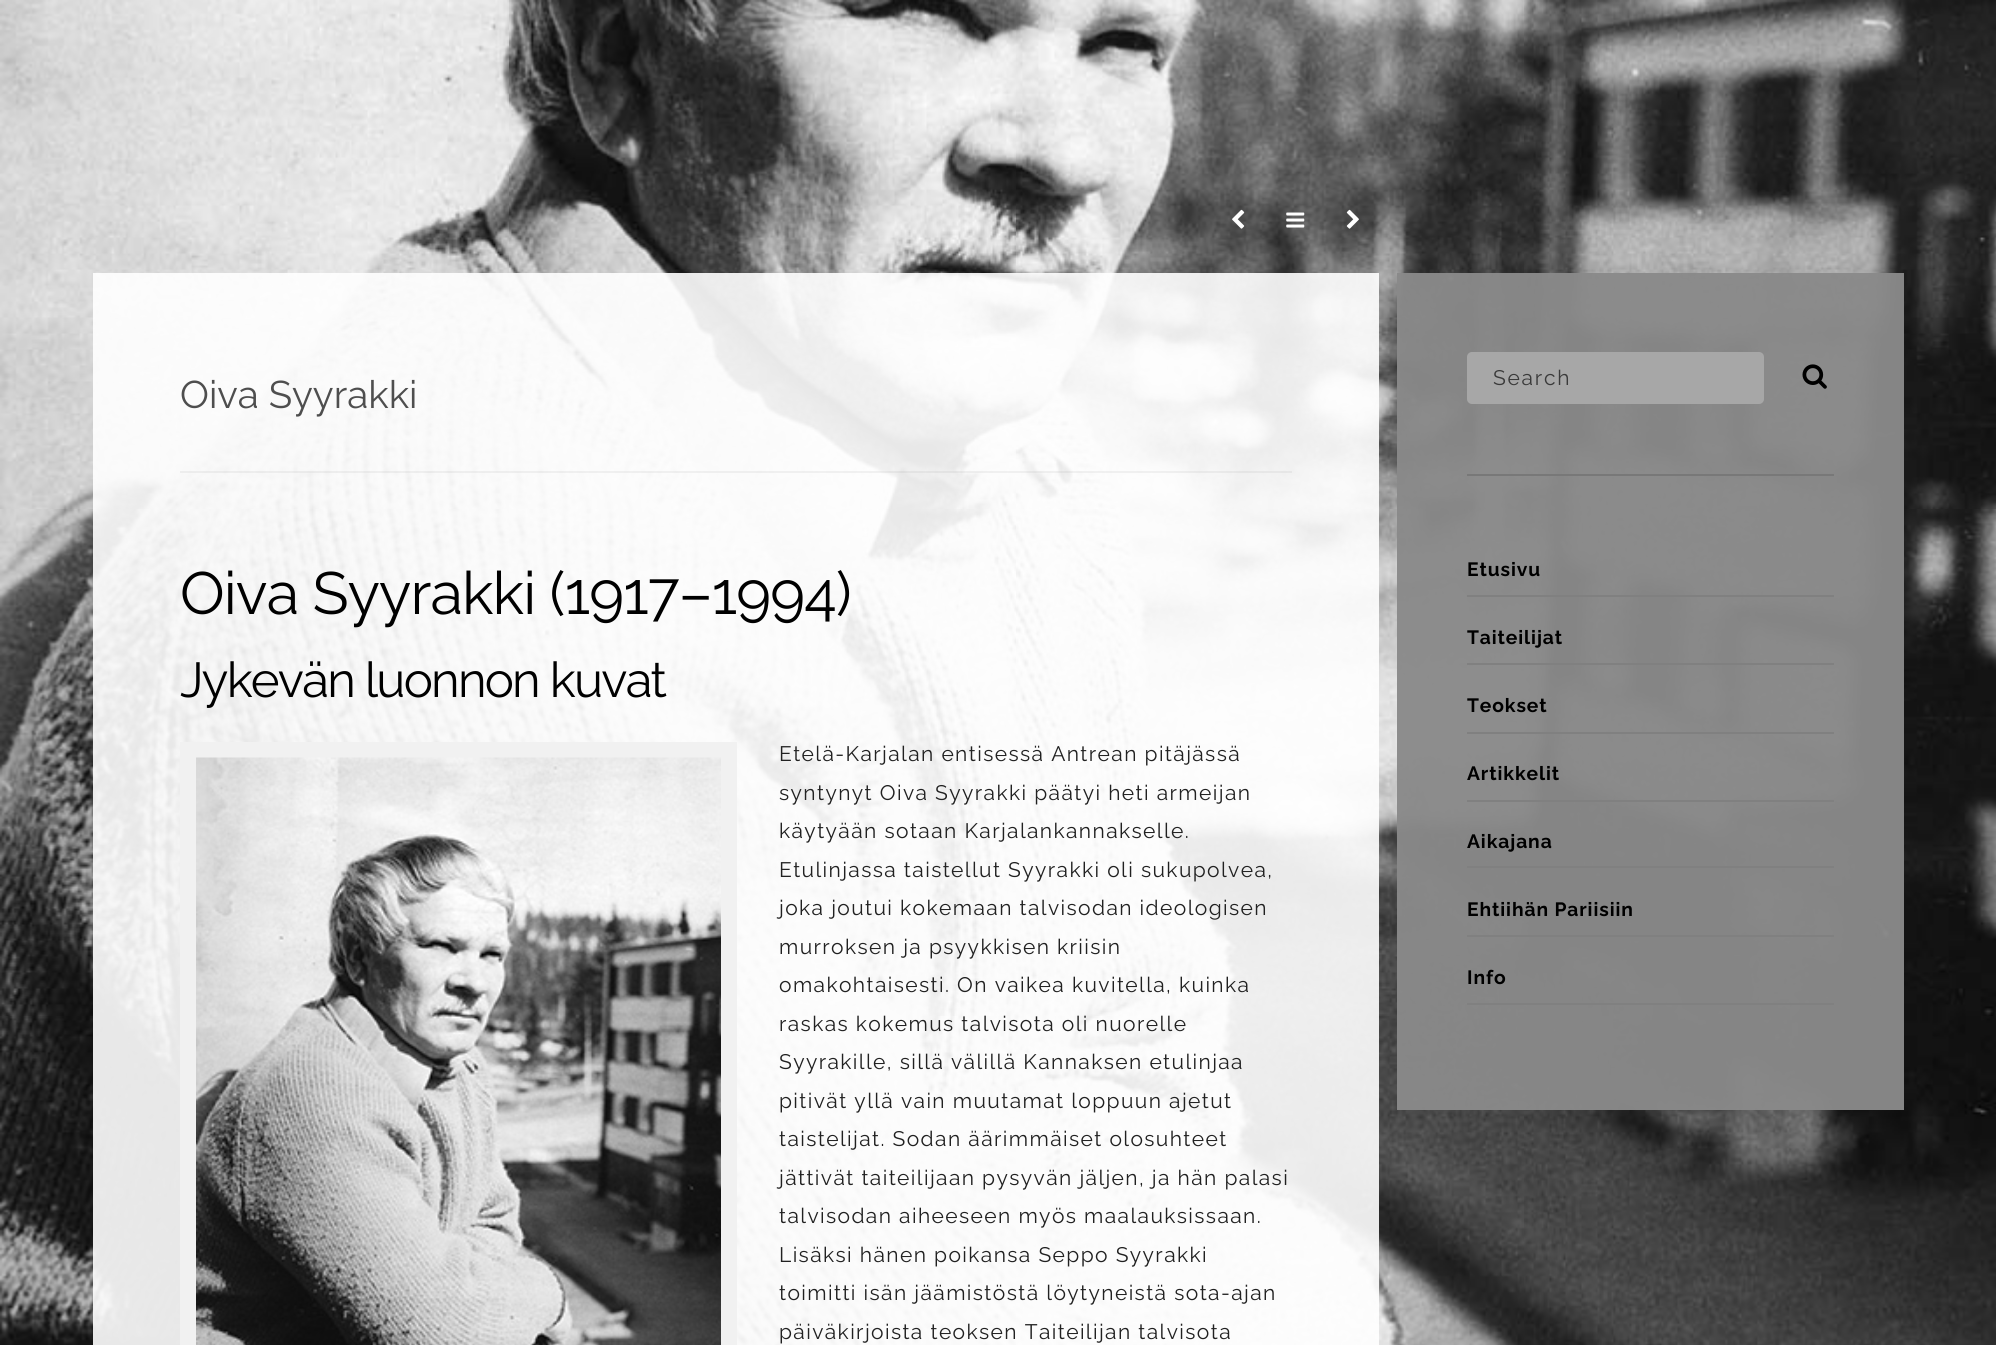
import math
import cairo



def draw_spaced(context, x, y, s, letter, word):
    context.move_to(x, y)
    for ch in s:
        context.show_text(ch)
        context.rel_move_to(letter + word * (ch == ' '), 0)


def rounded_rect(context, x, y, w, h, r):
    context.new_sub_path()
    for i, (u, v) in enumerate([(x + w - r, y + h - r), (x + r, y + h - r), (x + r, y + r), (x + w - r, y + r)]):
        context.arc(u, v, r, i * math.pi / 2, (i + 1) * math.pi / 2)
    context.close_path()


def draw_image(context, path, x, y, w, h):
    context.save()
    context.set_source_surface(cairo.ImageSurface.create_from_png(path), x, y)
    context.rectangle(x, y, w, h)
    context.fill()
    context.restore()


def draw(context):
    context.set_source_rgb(1, 1, 1)
    context.paint()
    draw_image(context, "images/1.png", 0, 0, 1996, 1345)
    draw_image(context, "images/2.png", 1232, 209, 13, 20)
    draw_image(context, "images/3.png", 1286, 212, 19, 16)
    draw_image(context, "images/4.png", 1346, 209, 13, 20)
    context.set_source_rgba(1, 1, 1, 0.9)
    context.rectangle(93, 273, 1286, 200)
    context.fill()
    context.set_source_rgba(0, 0, 0, 0.05)
    context.rectangle(180, 471, 1112, 2)
    context.fill()
    context.set_source_rgba(1, 1, 1, 0.9)
    context.rectangle(93, 473, 1286, 872)
    context.fill()
    context.set_source_rgb(241 / 255, 241 / 255, 241 / 255)
    context.rectangle(180, 742, 557, 603)
    context.fill()
    draw_image(context, "images/5.png", 196, 757, 525, 588)
    context.set_source_rgba(137 / 255, 137 / 255, 137 / 255, 0.96)
    context.rectangle(1397, 273, 507, 837)
    context.fill()
    context.set_source_rgb(120 / 255, 120 / 255, 120 / 255)
    context.rectangle(1467, 474, 367, 2)
    context.fill()
    context.set_source_rgb(167 / 255, 167 / 255, 167 / 255)
    rounded_rect(context, 1467, 352, 297, 52, 5)
    context.fill()
    draw_image(context, "images/6.png", 1802, 364, 25, 25)
    context.set_source_rgb(128 / 255, 128 / 255, 128 / 255)
    context.rectangle(1467, 595, 367, 2)
    context.fill()
    context.rectangle(1467, 663, 367, 2)
    context.fill()
    context.rectangle(1467, 732, 367, 2)
    context.fill()
    context.rectangle(1467, 800, 367, 2)
    context.fill()
    context.rectangle(1467, 866, 367, 2)
    context.fill()
    context.rectangle(1467, 935, 367, 2)
    context.fill()
    context.rectangle(1467, 1003, 367, 2)
    context.fill()
    context.select_font_face("Raleway")
    context.set_font_size(38.5)
    context.set_source_rgb(78 / 255, 78 / 255, 78 / 255)
    context.move_to(180, 408)
    context.show_text("Oiva Syyrakki")
    context.set_font_size(59.5)
    context.set_source_rgb(0, 0, 0)
    draw_spaced(context, 180, 614, "Oiva Syyrakki (1917–1994)", -0.9, 0)
    context.set_font_size(49)
    draw_spaced(context, 180, 697, "Jykevän luonnon kuvat", -1.75, 0)
    context.set_font_size(21)
    context.set_source_rgb(33 / 255, 33 / 255, 33 / 255)
    draw_spaced(context, 779, 761, "Etelä-Karjalan entisessä Antrean pitäjässä", 1.4, 0)
    draw_spaced(context, 779, 800, "syntynyt Oiva Syyrakki päätyi heti armeijan", 1.4, 0)
    draw_spaced(context, 779, 838, "käytyään sotaan Karjalankannakselle.", 1.4, 0)
    draw_spaced(context, 779, 877, "Etulinjassa taistellut Syyrakki oli sukupolvea,", 1.4, 0)
    draw_spaced(context, 779, 915, "joka joutui kokemaan talvisodan ideologisen", 1.4, 0)
    draw_spaced(context, 779, 954, "murroksen ja psyykkisen kriisin", 1.4, 0)
    draw_spaced(context, 779, 992, "omakohtaisesti. On vaikea kuvitella, kuinka", 1.4, 0)
    draw_spaced(context, 779, 1031, "raskas kokemus talvisota oli nuorelle", 1.4, 0)
    draw_spaced(context, 779, 1069, "Syyrakille, sillä välillä Kannaksen etulinjaa", 1.4, 0)
    draw_spaced(context, 779, 1108, "pitivät yllä vain muutamat loppuun ajetut", 1.4, 0)
    draw_spaced(context, 779, 1146, "taistelijat. Sodan äärimmäiset olosuhteet", 1.4, 0)
    draw_spaced(context, 779, 1185, "jättivät taiteilijaan pysyvän jäljen, ja hän palasi", 1.4, 0)
    draw_spaced(context, 779, 1223, "talvisodan aiheeseen myös maalauksissaan.", 1.4, 0)
    draw_spaced(context, 779, 1262, "Lisäksi hänen poikansa Seppo Syyrakki", 1.4, 0)
    draw_spaced(context, 779, 1300, "toimitti isän jäämistöstä löytyneistä sota-ajan", 1.4, 0)
    draw_spaced(context, 779, 1339, "päiväkirjoista teoksen Taiteilijan talvisota", 1.4, 0)
    context.set_source_rgb(58 / 255, 58 / 255, 58 / 255)
    draw_spaced(context, 1493, 385, "Search", 1.75, 0)
    context.select_font_face("Raleway", cairo.FontSlant.NORMAL, cairo.FontWeight.BOLD)
    context.set_font_size(19.25)
    context.set_source_rgb(0, 0, 0)
    draw_spaced(context, 1467, 576, "Etusivu", 0.9, 0)
    draw_spaced(context, 1467, 644, "Taiteilijat", 0.9, 0)
    draw_spaced(context, 1467, 712, "Teokset", 0.9, 0)
    draw_spaced(context, 1467, 780, "Artikkelit", 0.9, 0)
    draw_spaced(context, 1467, 848, "Aikajana", 0.9, 0)
    draw_spaced(context, 1467, 916, "Ehtiihän Pariisiin", 0.9, 0)
    draw_spaced(context, 1467, 984, "Info", 0.9, 0)


surface = cairo.ImageSurface(cairo.Format.RGB24, 1996, 1345)
context = cairo.Context(surface)
options = cairo.FontOptions()
options.set_hint_metrics(cairo.HintMetrics.OFF)
options.set_hint_style(cairo.HintStyle.NONE)
context.set_font_options(options)
context.set_miter_limit(4)
draw(context)
surface.write_to_png("out.png")
